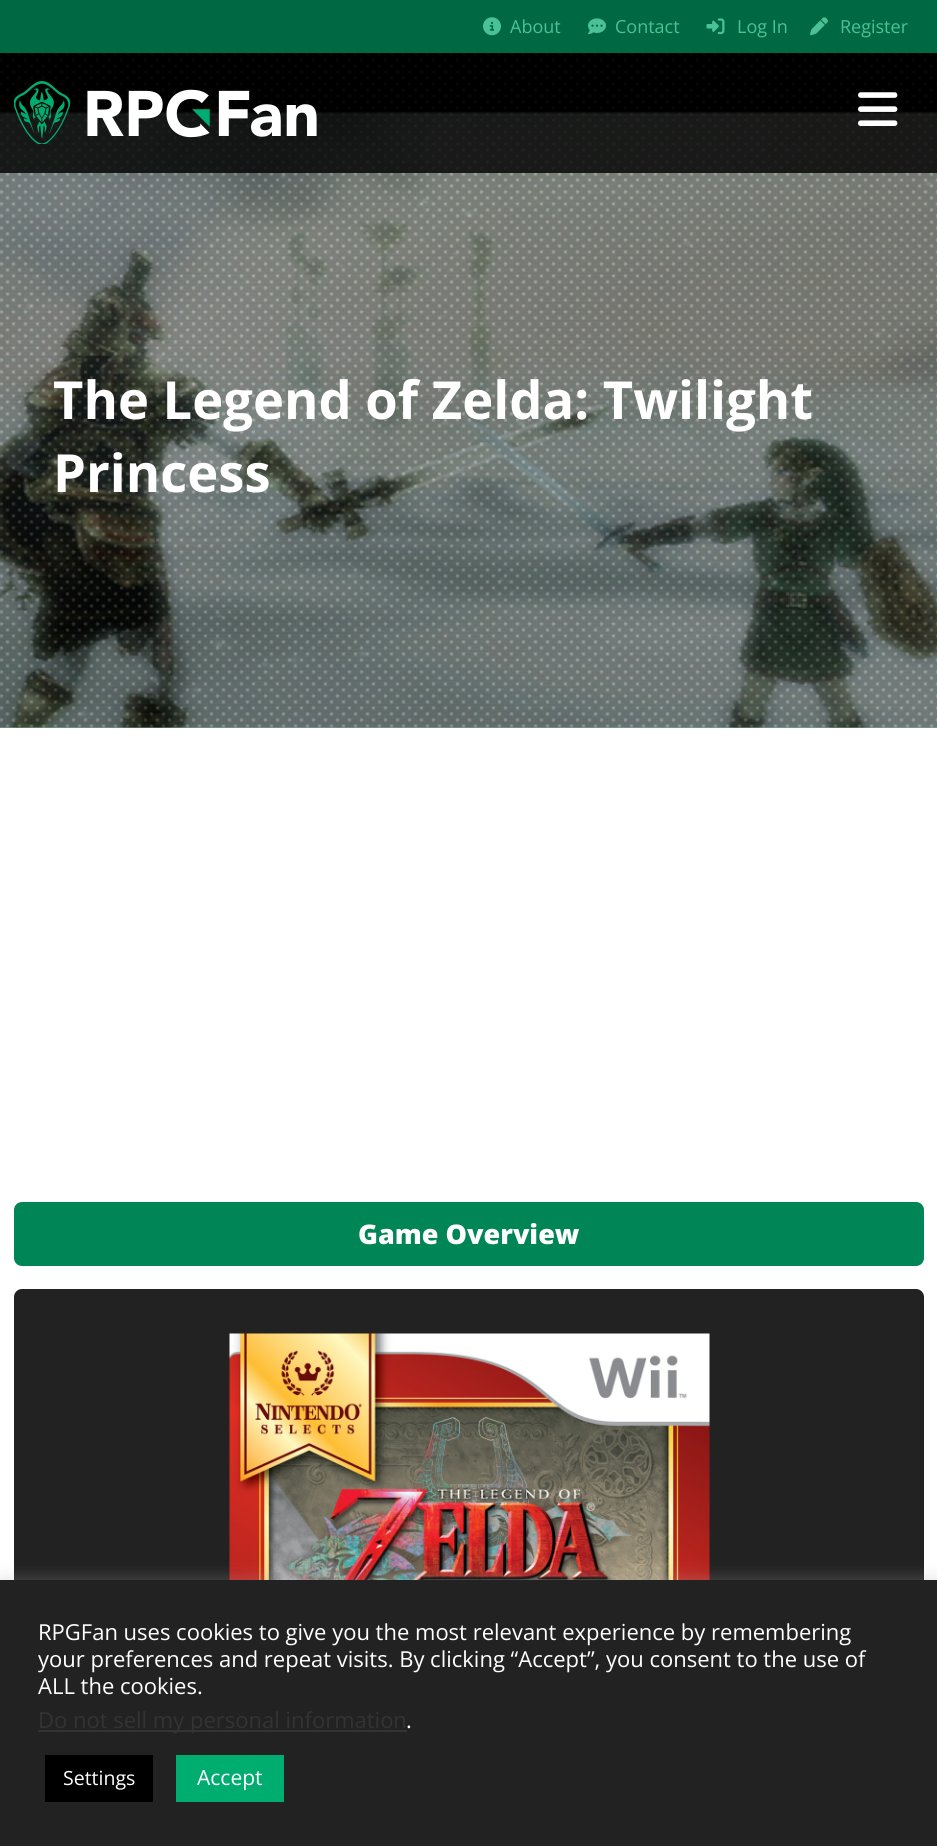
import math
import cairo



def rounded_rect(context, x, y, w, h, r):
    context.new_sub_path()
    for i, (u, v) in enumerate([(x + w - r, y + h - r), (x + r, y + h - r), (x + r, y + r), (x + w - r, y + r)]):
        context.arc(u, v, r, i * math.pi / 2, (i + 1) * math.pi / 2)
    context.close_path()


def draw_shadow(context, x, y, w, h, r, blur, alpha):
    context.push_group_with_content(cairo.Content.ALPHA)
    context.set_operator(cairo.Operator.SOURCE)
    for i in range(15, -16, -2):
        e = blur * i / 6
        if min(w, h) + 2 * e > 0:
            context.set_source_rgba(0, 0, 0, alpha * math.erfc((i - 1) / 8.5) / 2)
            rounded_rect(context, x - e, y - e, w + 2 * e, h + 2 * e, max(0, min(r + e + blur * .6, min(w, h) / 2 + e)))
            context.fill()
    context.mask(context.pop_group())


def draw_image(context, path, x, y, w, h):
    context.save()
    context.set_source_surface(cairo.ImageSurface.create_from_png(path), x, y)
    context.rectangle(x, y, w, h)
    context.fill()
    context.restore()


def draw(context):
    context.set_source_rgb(1, 1, 1)
    context.paint()
    context.set_source_rgb(0, 105 / 255, 68 / 255)
    context.rectangle(0, 0, 937, 53)
    context.fill()
    draw_image(context, "images/1.png", 483, 17, 18, 19)
    draw_image(context, "images/2.png", 588, 18, 18, 17)
    draw_image(context, "images/3.png", 706, 18, 19, 17)
    draw_image(context, "images/4.png", 810, 17, 18, 19)
    draw_image(context, "images/7.png", 0, 727, 937, 1)
    draw_image(context, "images/8.png", 0, 53, 937, 675)
    draw_image(context, "images/9.png", 0, 53, 937, 675)
    context.set_source_rgba(0, 0, 0, 0.8)
    context.rectangle(0, 53, 937, 120)
    context.fill()
    draw_image(context, "images/5.png", 14, 81, 303, 63)
    draw_image(context, "images/6.png", 858, 92, 40, 34)
    context.set_source_rgb(0, 133 / 255, 86 / 255)
    rounded_rect(context, 14, 1202, 910, 64, 8)
    context.fill()
    context.set_source_rgb(34 / 255, 34 / 255, 34 / 255)
    rounded_rect(context, 14, 1289, 910, 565, 8)
    context.fill()
    draw_image(context, "images/10.png", 229, 1333, 481, 247)
    context.set_source_rgb(172 / 255, 171 / 255, 171 / 255)
    draw_shadow(context, 0, 1578, 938, 267, 0, 7.5, 0.3)
    context.set_source_rgb(34 / 255, 34 / 255, 34 / 255)
    context.rectangle(0, 1580, 937, 266)
    context.fill()
    context.set_source_rgb(51 / 255, 51 / 255, 51 / 255)
    context.rectangle(38, 1730, 369, 2)
    context.fill()
    context.set_source_rgb(0, 0, 0)
    context.rectangle(45, 1755, 108, 47)
    context.fill()
    context.set_source_rgb(0, 173 / 255, 112 / 255)
    context.rectangle(176, 1755, 108, 47)
    context.fill()
    context.select_font_face("Open Sans")
    context.set_font_size(18)
    context.set_source_rgb(75 / 255, 193 / 255, 151 / 255)
    context.move_to(510, 33)
    context.show_text("About")
    context.move_to(615, 33)
    context.show_text("Contact")
    context.move_to(737, 33)
    context.show_text("Log In")
    context.move_to(840, 33)
    context.show_text("Register")
    context.select_font_face("Open Sans", cairo.FontSlant.NORMAL, cairo.FontWeight.BOLD)
    context.set_font_size(52.5)
    context.set_source_rgb(1, 1, 1)
    context.move_to(53, 419)
    context.show_text("The Legend of Zelda: Twilight")
    context.move_to(53, 492)
    context.show_text("Princess")
    context.select_font_face("Open Sans ExtraBold")
    context.set_font_size(27)
    context.move_to(358, 1244)
    context.show_text("Game Overview")
    context.select_font_face("Open Sans")
    context.set_font_size(22)
    context.move_to(38, 1640)
    context.show_text("RPGFan uses cookies to give you the most relevant experience by remembering")
    context.move_to(38, 1667)
    context.show_text("your preferences and repeat visits. By clicking “Accept”, you consent to the use of")
    context.move_to(38, 1694)
    context.show_text("ALL the cookies.")
    context.set_source_rgb(51 / 255, 51 / 255, 51 / 255)
    context.move_to(38, 1728)
    context.show_text("Do not sell my personal information")
    context.set_source_rgb(1, 1, 1)
    context.move_to(406, 1728)
    context.show_text(".")
    context.set_font_size(19.5)
    context.move_to(63, 1785)
    context.show_text("Settings")
    context.set_font_size(21)
    context.move_to(197, 1785)
    context.show_text("Accept")


surface = cairo.ImageSurface(cairo.Format.RGB24, 937, 1846)
context = cairo.Context(surface)
options = cairo.FontOptions()
options.set_hint_metrics(cairo.HintMetrics.OFF)
options.set_hint_style(cairo.HintStyle.NONE)
context.set_font_options(options)
context.set_miter_limit(4)
draw(context)
surface.write_to_png("out.png")
